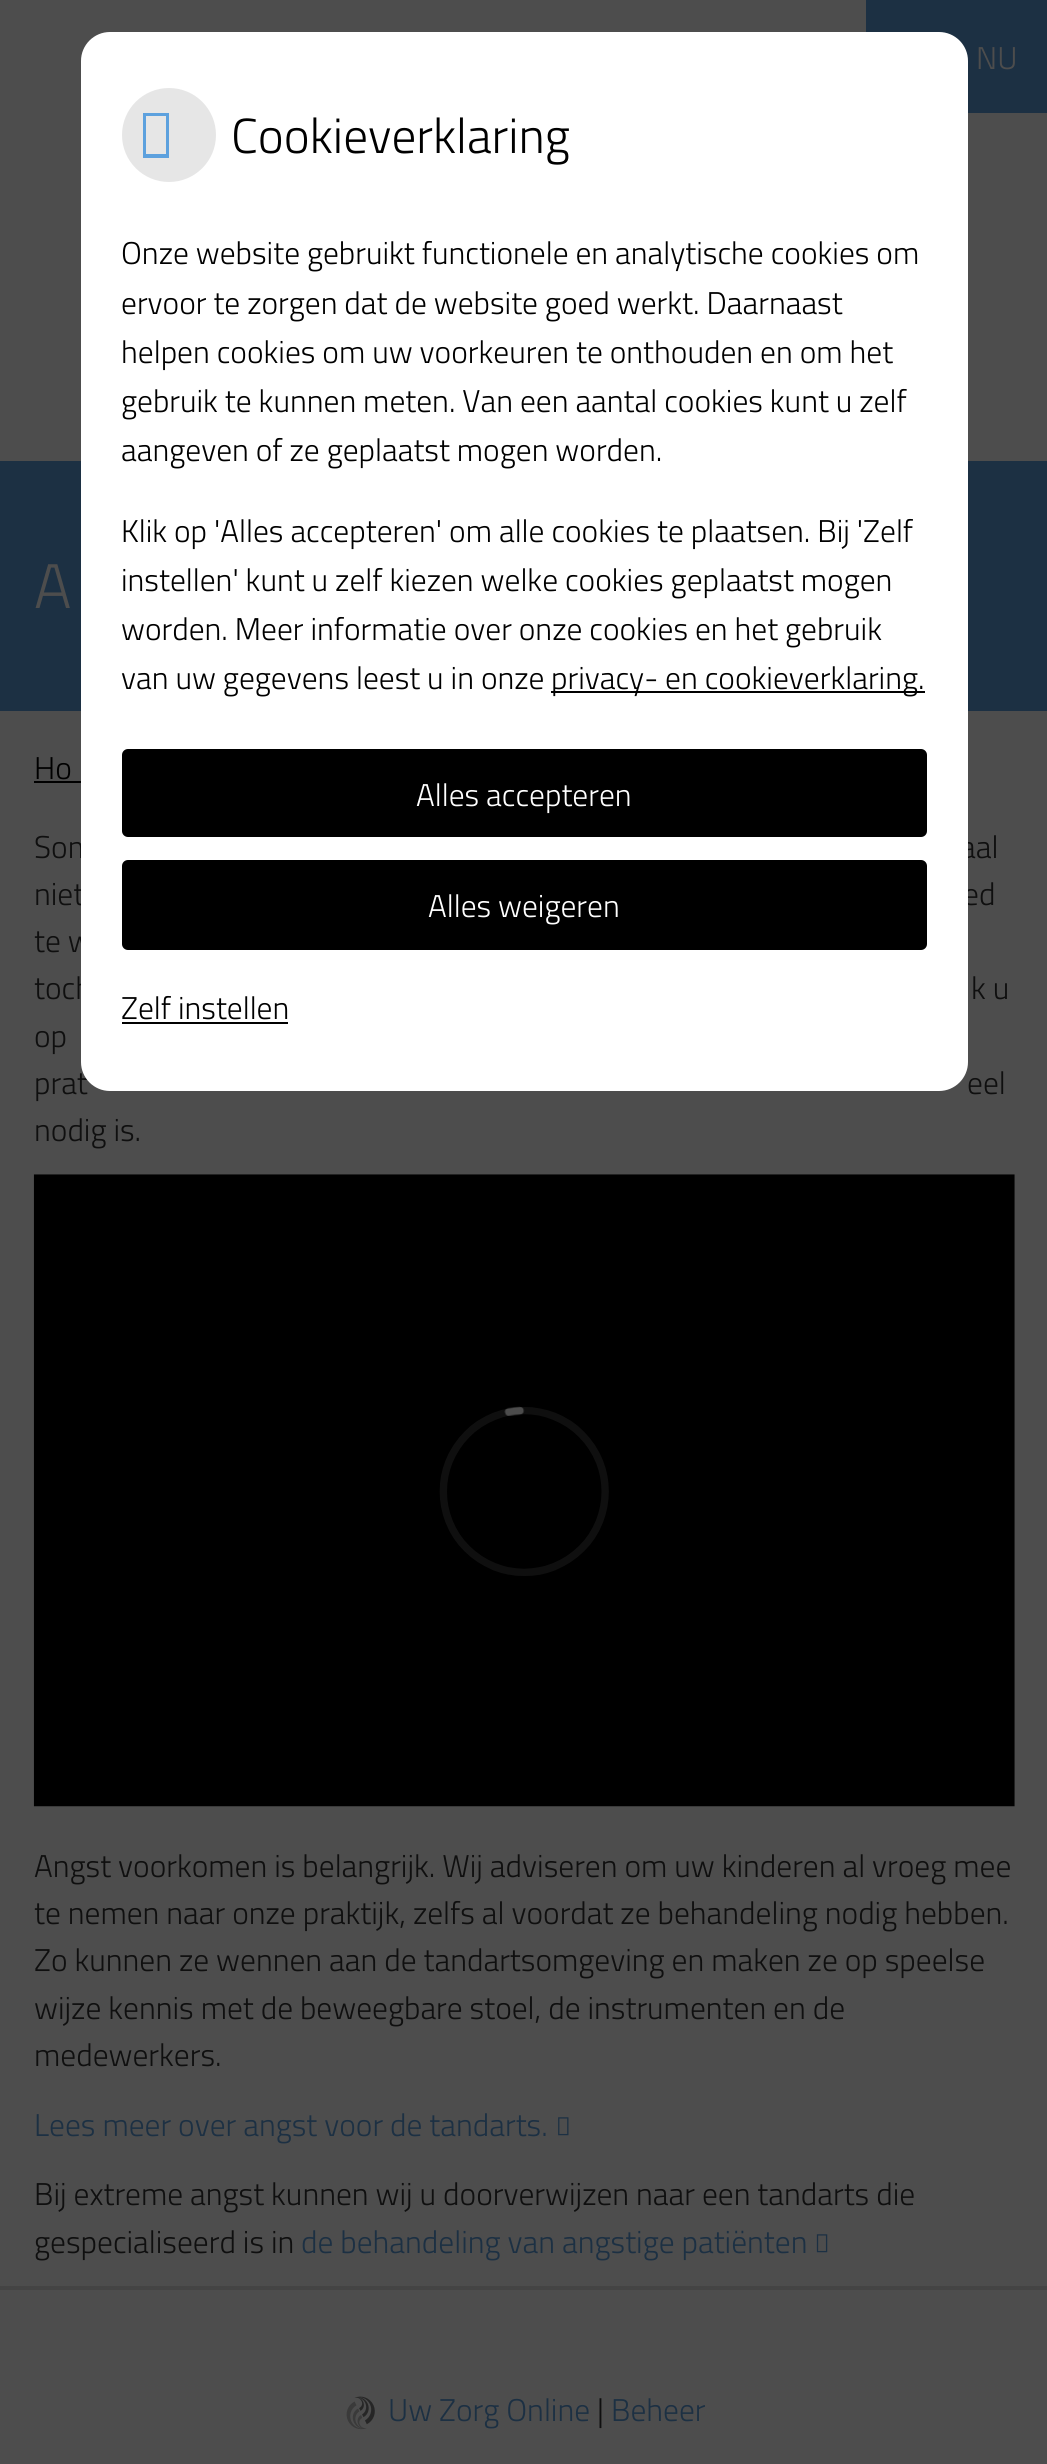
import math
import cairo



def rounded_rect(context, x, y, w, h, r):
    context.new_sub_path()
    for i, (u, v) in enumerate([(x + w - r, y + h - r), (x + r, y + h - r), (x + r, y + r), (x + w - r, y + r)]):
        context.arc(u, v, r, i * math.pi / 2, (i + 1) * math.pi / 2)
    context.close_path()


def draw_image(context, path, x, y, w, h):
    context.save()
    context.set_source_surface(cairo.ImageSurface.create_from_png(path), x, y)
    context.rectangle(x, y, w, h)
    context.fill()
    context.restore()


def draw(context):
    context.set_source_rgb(77 / 255, 77 / 255, 77 / 255)
    context.paint()
    context.set_source_rgb(28 / 255, 48 / 255, 67 / 255)
    context.rectangle(866, 0, 181, 113)
    context.fill()
    context.rectangle(0, 461, 1047, 250)
    context.fill()
    context.set_source_rgb(0, 0, 0)
    context.rectangle(34, 781, 47, 2)
    context.fill()
    draw_image(context, "images/1.png", 33, 1174, 982, 633)
    draw_image(context, "images/2.png", 558, 2117, 11, 19)
    draw_image(context, "images/3.png", 816, 2234, 12, 19)
    context.set_source_rgb(68 / 255, 68 / 255, 68 / 255)
    context.rectangle(0, 2286, 1047, 4)
    context.fill()
    draw_image(context, "images/4.png", 346, 2396, 29, 34)
    context.select_font_face("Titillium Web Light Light")
    context.set_font_size(31.5)
    context.set_source_rgb(77 / 255, 77 / 255, 77 / 255)
    context.move_to(976, 69)
    context.show_text("NU")
    context.set_font_size(63)
    context.move_to(34, 608)
    context.show_text("A")
    context.set_font_size(31.5)
    context.set_source_rgb(0, 0, 0)
    context.move_to(34, 779)
    context.show_text("Ho")
    context.set_source_rgb(15 / 255, 15 / 255, 15 / 255)
    context.move_to(34, 858)
    context.show_text("Som")
    context.move_to(960, 858)
    context.show_text("aal")
    context.move_to(34, 905)
    context.show_text("niet")
    context.move_to(963, 905)
    context.show_text("ed")
    context.move_to(34, 952)
    context.show_text("te w")
    context.move_to(34, 999)
    context.show_text("toch")
    context.move_to(971, 999)
    context.show_text("k u")
    context.move_to(34, 1047)
    context.show_text("op")
    context.move_to(34, 1094)
    context.show_text("prat")
    context.set_source_rgb(1, 1, 1)
    rounded_rect(context, 81, 32, 887, 1059, 29)
    context.fill()
    context.set_source_rgb(0, 0, 0)
    context.move_to(121, 1019)
    context.show_text("Zelf instellen")
    context.rectangle(122, 1022, 166, 2)
    context.fill()
    rounded_rect(context, 122, 860, 805, 90, 6)
    context.fill()
    context.set_source_rgb(1, 1, 1)
    context.move_to(428, 917)
    context.show_text("Alles weigeren")
    context.set_source_rgb(0, 0, 0)
    rounded_rect(context, 122, 749, 805, 88, 6)
    context.fill()
    context.set_source_rgb(1, 1, 1)
    context.move_to(416, 806)
    context.show_text("Alles accepteren")
    context.set_source_rgb(0, 0, 0)
    context.rectangle(551, 691, 374, 2)
    context.fill()
    context.move_to(551, 689)
    context.show_text("privacy- en cookieverklaring.")
    context.move_to(121, 689)
    context.show_text("van uw gegevens leest u in onze")
    context.move_to(121, 640)
    context.show_text("worden. Meer informatie over onze cookies en het gebruik")
    context.move_to(121, 591)
    context.show_text("instellen' kunt u zelf kiezen welke cookies geplaatst mogen")
    context.move_to(121, 542)
    context.show_text("Klik op 'Alles accepteren' om alle cookies te plaatsen. Bij 'Zelf")
    context.move_to(121, 461)
    context.show_text("aangeven of ze geplaatst mogen worden.")
    context.move_to(121, 412)
    context.show_text("gebruik te kunnen meten. Van een aantal cookies kunt u zelf")
    context.move_to(121, 363)
    context.show_text("helpen cookies om uw voorkeuren te onthouden en om het")
    context.move_to(121, 314)
    context.show_text("ervoor te zorgen dat de website goed werkt. Daarnaast")
    context.move_to(121, 264)
    context.show_text("Onze website gebruikt functionele en analytische cookies om")
    context.set_font_size(49.25)
    context.move_to(231, 153)
    context.show_text("Cookieverklaring")
    context.set_source_rgb(230 / 255, 230 / 255, 230 / 255)
    context.new_path()
    context.arc(169, 135, 47, 0, 2 * math.pi)
    context.fill()
    context.set_source_rgb(93 / 255, 161 / 255, 222 / 255)
    context.new_path()
    context.move_to(143, 158)
    context.line_to(143, 113)
    context.line_to(169, 113)
    context.line_to(169, 158)
    context.close_path()
    context.move_to(146, 154)
    context.line_to(166, 154)
    context.line_to(166, 116)
    context.line_to(146, 116)
    context.close_path()
    context.fill()
    context.set_font_size(31.5)
    context.set_source_rgb(15 / 255, 15 / 255, 15 / 255)
    context.move_to(967, 1094)
    context.show_text("eel")
    context.move_to(34, 1141)
    context.show_text("nodig is.")
    context.move_to(34, 1877)
    context.show_text("Angst voorkomen is belangrijk. Wij adviseren om uw kinderen al vroeg mee")
    context.move_to(34, 1924)
    context.show_text("te nemen naar onze praktijk, zelfs al voordat ze behandeling nodig hebben.")
    context.move_to(34, 1971)
    context.show_text("Zo kunnen ze wennen aan de tandartsomgeving en maken ze op speelse")
    context.move_to(34, 2019)
    context.show_text("wijze kennis met de beweegbare stoel, de instrumenten en de")
    context.move_to(34, 2066)
    context.show_text("medewerkers.")
    context.set_source_rgb(28 / 255, 48 / 255, 67 / 255)
    context.move_to(34, 2136)
    context.show_text("Lees meer over angst voor de tandarts.")
    context.set_source_rgb(15 / 255, 15 / 255, 15 / 255)
    context.move_to(34, 2205)
    context.show_text("Bij extreme angst kunnen wij u doorverwijzen naar een tandarts die")
    context.move_to(34, 2253)
    context.show_text("gespecialiseerd is in")
    context.set_source_rgb(28 / 255, 48 / 255, 67 / 255)
    context.move_to(301, 2253)
    context.show_text("de behandeling van angstige patiënten")
    context.move_to(388, 2421)
    context.show_text("Uw Zorg Online")
    context.set_source_rgb(15 / 255, 15 / 255, 15 / 255)
    context.move_to(597, 2421)
    context.show_text("|")
    context.set_source_rgb(28 / 255, 48 / 255, 67 / 255)
    context.move_to(611, 2421)
    context.show_text("Beheer")


surface = cairo.ImageSurface(cairo.Format.RGB24, 1047, 2464)
context = cairo.Context(surface)
options = cairo.FontOptions()
options.set_hint_metrics(cairo.HintMetrics.OFF)
options.set_hint_style(cairo.HintStyle.NONE)
context.set_font_options(options)
context.set_miter_limit(4)
draw(context)
surface.write_to_png("out.png")
